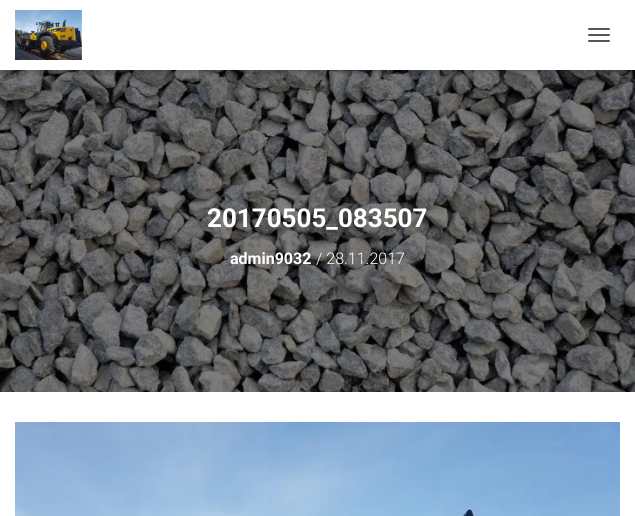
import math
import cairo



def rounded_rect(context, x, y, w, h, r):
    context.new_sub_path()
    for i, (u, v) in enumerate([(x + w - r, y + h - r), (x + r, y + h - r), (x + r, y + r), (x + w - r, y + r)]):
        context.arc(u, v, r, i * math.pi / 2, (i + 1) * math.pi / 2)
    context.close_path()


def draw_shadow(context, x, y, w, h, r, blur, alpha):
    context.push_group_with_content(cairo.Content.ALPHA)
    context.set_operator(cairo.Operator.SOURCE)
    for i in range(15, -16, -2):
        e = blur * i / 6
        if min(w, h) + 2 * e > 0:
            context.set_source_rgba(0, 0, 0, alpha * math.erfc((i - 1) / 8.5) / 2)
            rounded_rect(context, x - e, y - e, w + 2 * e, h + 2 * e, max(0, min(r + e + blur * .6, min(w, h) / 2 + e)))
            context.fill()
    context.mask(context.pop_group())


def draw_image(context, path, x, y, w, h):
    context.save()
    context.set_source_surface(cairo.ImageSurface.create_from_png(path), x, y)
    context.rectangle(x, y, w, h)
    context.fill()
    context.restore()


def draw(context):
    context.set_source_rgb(1, 1, 1)
    context.paint()
    draw_image(context, "images/2.png", 0, 70, 635, 322)
    context.set_source_rgb(0, 0, 0)
    draw_shadow(context, 2, 6, 631, 66, 0, 2.5, 0.1)
    draw_shadow(context, 0, 1, 635, 70, 0, 5, 0.12)
    draw_shadow(context, 6, 7, 623, 58, 0, 5, 0.42)
    context.set_source_rgb(1, 1, 1)
    context.rectangle(0, 0, 635, 70)
    context.fill()
    draw_image(context, "images/1.png", 15, 10, 67, 50)
    context.set_source_rgb(85 / 255, 85 / 255, 85 / 255)
    rounded_rect(context, 588, 28, 22, 2, 1)
    context.fill()
    rounded_rect(context, 588, 34, 22, 2, 1)
    context.fill()
    rounded_rect(context, 588, 40, 22, 2, 1)
    context.fill()
    draw_image(context, "images/3.png", 15, 422, 605, 94)
    context.select_font_face("Roboto", cairo.FontSlant.NORMAL, cairo.FontWeight.BOLD)
    context.set_font_size(26)
    context.set_source_rgb(1, 1, 1)
    context.move_to(207, 227)
    context.show_text("20170505_083507")
    context.set_font_size(16)
    context.move_to(230, 264)
    context.show_text("admin9032")
    context.select_font_face("Roboto Light")
    context.move_to(316, 264)
    context.show_text("/ 28.11.2017")


surface = cairo.ImageSurface(cairo.Format.RGB24, 635, 516)
context = cairo.Context(surface)
options = cairo.FontOptions()
options.set_hint_metrics(cairo.HintMetrics.OFF)
options.set_hint_style(cairo.HintStyle.NONE)
context.set_font_options(options)
context.set_miter_limit(4)
draw(context)
surface.write_to_png("out.png")
